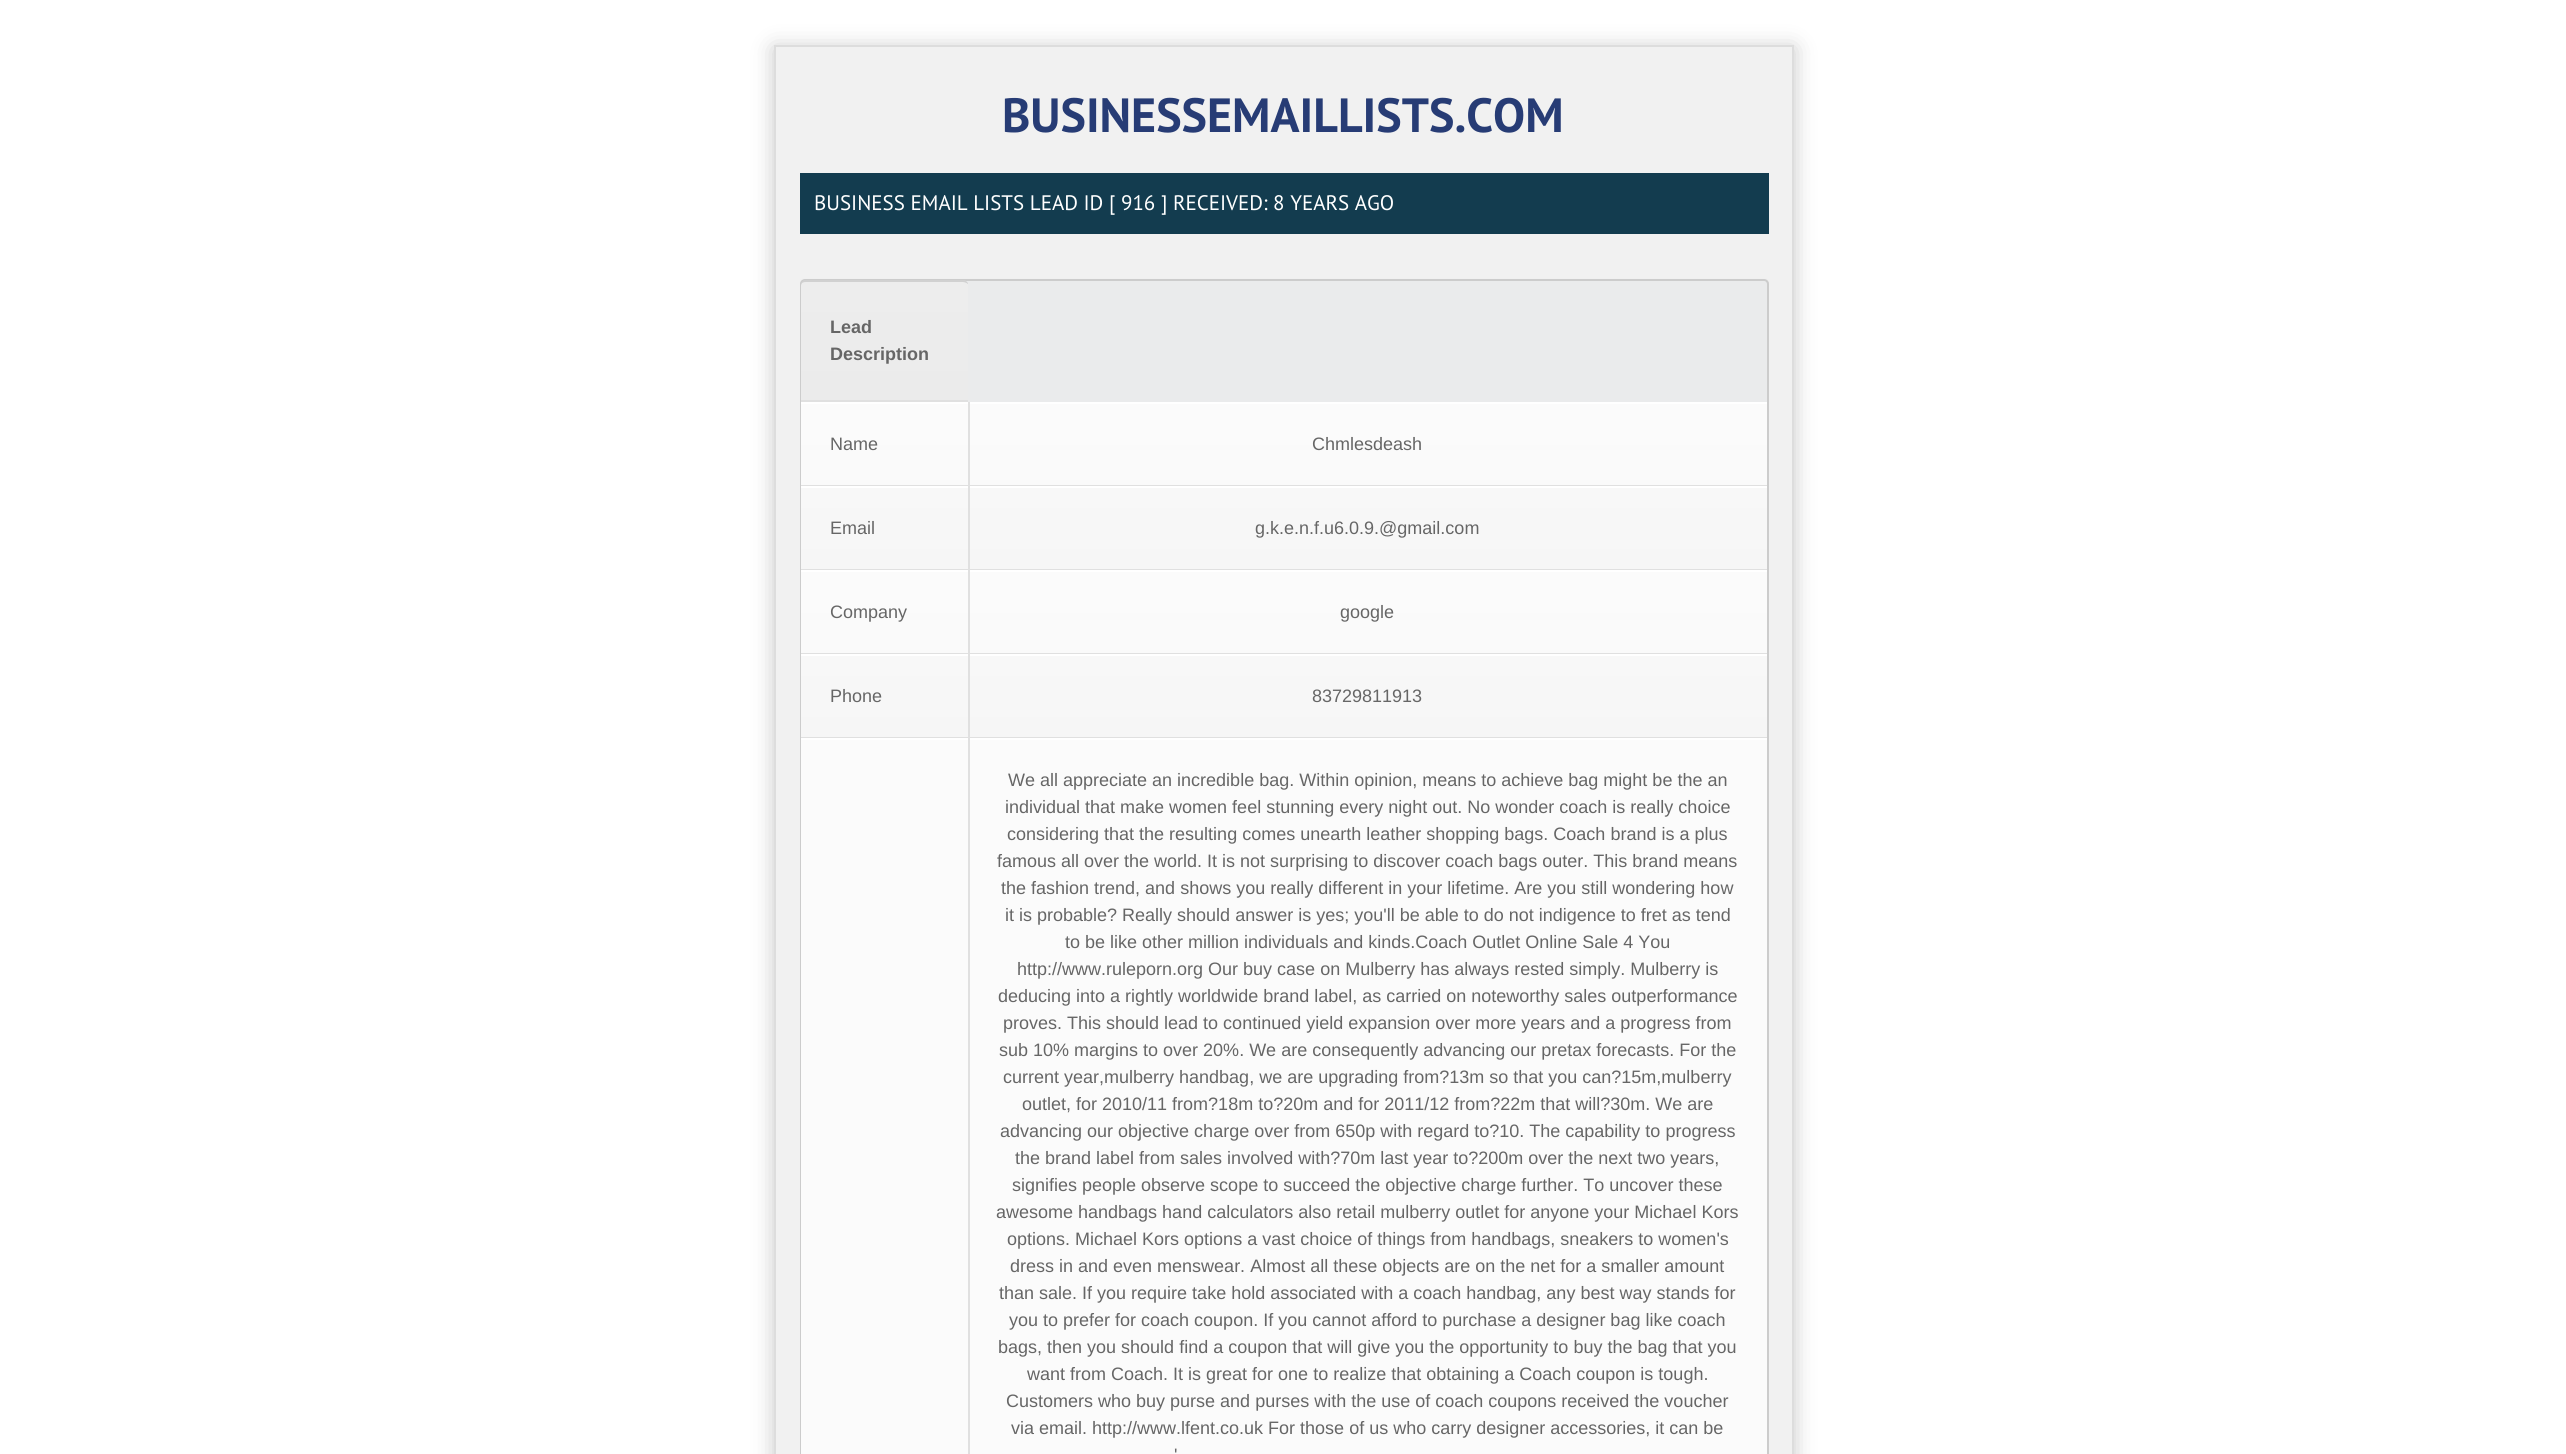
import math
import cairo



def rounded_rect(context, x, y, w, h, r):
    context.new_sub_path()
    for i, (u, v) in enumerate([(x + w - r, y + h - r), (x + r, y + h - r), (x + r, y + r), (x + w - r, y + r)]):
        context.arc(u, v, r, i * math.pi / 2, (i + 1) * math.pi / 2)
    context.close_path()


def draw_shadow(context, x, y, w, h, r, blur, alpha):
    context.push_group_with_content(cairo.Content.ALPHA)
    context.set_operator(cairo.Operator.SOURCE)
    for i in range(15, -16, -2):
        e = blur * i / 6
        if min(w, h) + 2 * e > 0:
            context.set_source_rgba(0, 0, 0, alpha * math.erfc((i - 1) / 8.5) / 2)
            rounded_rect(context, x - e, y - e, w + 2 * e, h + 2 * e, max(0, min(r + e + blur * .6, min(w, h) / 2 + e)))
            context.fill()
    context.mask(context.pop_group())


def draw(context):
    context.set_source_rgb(1, 1, 1)
    context.paint()
    context.set_source_rgb(50 / 255, 50 / 255, 50 / 255)
    draw_shadow(context, 774, 48, 1020, 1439, 0, 11, 0.27)
    context.set_source_rgb(241 / 255, 241 / 255, 241 / 255)
    context.rectangle(775, 46, 1018, 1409)
    context.fill_preserve()
    context.set_source_rgb(221 / 255, 221 / 255, 221 / 255)
    context.stroke()
    context.set_source_rgb(19 / 255, 60 / 255, 79 / 255)
    context.rectangle(800, 173, 969, 61)
    context.fill()
    context.save()
    context.rectangle(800, 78, 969, 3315)
    context.clip()
    context.set_source_rgb(209 / 255, 209 / 255, 209 / 255)
    draw_shadow(context, 800, 281, 969, 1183, 5, 1.5, 1)
    context.restore()
    context.set_source_rgb(234 / 255, 235 / 255, 236 / 255)
    rounded_rect(context, 801, 280, 967, 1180, 4)
    context.fill_preserve()
    context.set_source_rgb(204 / 255, 204 / 255, 204 / 255)
    context.stroke()
    context.save()
    context.new_path()
    context.move_to(806, 281)
    context.line_to(963, 281)
    context.curve_to(966, 281, 968, 283, 968, 286)
    context.line_to(968, 402)
    context.line_to(801, 402)
    context.line_to(801, 286)
    context.curve_to(801, 283, 803, 281, 806, 281)
    context.close_path()
    context.clip()
    gradient = cairo.LinearGradient(801, 282, 801, 401)
    gradient.add_color_stop_rgba(0, 237 / 255, 237 / 255, 237 / 255, 1)
    gradient.add_color_stop_rgba(1, 235 / 255, 235 / 255, 235 / 255, 1)
    context.set_source(gradient)
    context.rectangle(801, 282, 167, 118)
    context.fill()
    context.restore()
    context.set_source_rgb(209 / 255, 209 / 255, 209 / 255)
    context.new_path()
    context.move_to(806, 282)
    context.curve_to(803, 282, 801, 283, 801, 285)
    context.curve_to(801, 283, 802, 281, 804, 280)
    context.line_to(965, 280)
    context.curve_to(966, 281, 967, 282, 968, 283)
    context.line_to(968, 284)
    context.curve_to(967, 283, 964, 282, 963, 282)
    context.close_path()
    context.fill()
    context.set_source_rgb(224 / 255, 224 / 255, 224 / 255)
    context.rectangle(801, 400, 167, 2)
    context.fill()
    gradient = cairo.LinearGradient(801, 404, 801, 485)
    gradient.add_color_stop_rgba(0, 251 / 255, 251 / 255, 251 / 255, 1)
    gradient.add_color_stop_rgba(1, 250 / 255, 250 / 255, 250 / 255, 1)
    context.set_source(gradient)
    context.rectangle(801, 404, 167, 81)
    context.fill()
    context.set_source_rgb(1, 1, 1)
    context.rectangle(801, 402, 966, 2)
    context.fill()
    context.set_source_rgb(224 / 255, 224 / 255, 224 / 255)
    context.rectangle(801, 485, 966, 1)
    context.fill()
    gradient = cairo.LinearGradient(969, 404, 969, 485)
    gradient.add_color_stop_rgba(0, 251 / 255, 251 / 255, 251 / 255, 1)
    gradient.add_color_stop_rgba(1, 250 / 255, 250 / 255, 250 / 255, 1)
    context.set_source(gradient)
    context.rectangle(970, 404, 797, 81)
    context.fill()
    context.set_source_rgb(224 / 255, 224 / 255, 224 / 255)
    context.rectangle(968, 402, 2, 84)
    context.fill()
    gradient = cairo.LinearGradient(801, 488, 801, 569)
    gradient.add_color_stop_rgba(0, 248 / 255, 248 / 255, 248 / 255, 1)
    gradient.add_color_stop_rgba(1, 246 / 255, 246 / 255, 246 / 255, 1)
    context.set_source(gradient)
    context.rectangle(801, 488, 167, 81)
    context.fill()
    context.set_source_rgb(1, 1, 1)
    context.rectangle(801, 486, 966, 2)
    context.fill()
    context.set_source_rgb(224 / 255, 224 / 255, 224 / 255)
    context.rectangle(801, 569, 966, 1)
    context.fill()
    gradient = cairo.LinearGradient(969, 488, 969, 569)
    gradient.add_color_stop_rgba(0, 248 / 255, 248 / 255, 248 / 255, 1)
    gradient.add_color_stop_rgba(1, 246 / 255, 246 / 255, 246 / 255, 1)
    context.set_source(gradient)
    context.rectangle(970, 488, 797, 81)
    context.fill()
    context.set_source_rgb(224 / 255, 224 / 255, 224 / 255)
    context.rectangle(968, 486, 2, 84)
    context.fill()
    gradient = cairo.LinearGradient(801, 572, 801, 653)
    gradient.add_color_stop_rgba(0, 251 / 255, 251 / 255, 251 / 255, 1)
    gradient.add_color_stop_rgba(1, 250 / 255, 250 / 255, 250 / 255, 1)
    context.set_source(gradient)
    context.rectangle(801, 572, 167, 81)
    context.fill()
    context.set_source_rgb(1, 1, 1)
    context.rectangle(801, 570, 966, 2)
    context.fill()
    context.set_source_rgb(224 / 255, 224 / 255, 224 / 255)
    context.rectangle(801, 653, 966, 1)
    context.fill()
    gradient = cairo.LinearGradient(969, 572, 969, 653)
    gradient.add_color_stop_rgba(0, 251 / 255, 251 / 255, 251 / 255, 1)
    gradient.add_color_stop_rgba(1, 250 / 255, 250 / 255, 250 / 255, 1)
    context.set_source(gradient)
    context.rectangle(970, 572, 797, 81)
    context.fill()
    context.set_source_rgb(224 / 255, 224 / 255, 224 / 255)
    context.rectangle(968, 570, 2, 84)
    context.fill()
    gradient = cairo.LinearGradient(801, 656, 801, 737)
    gradient.add_color_stop_rgba(0, 248 / 255, 248 / 255, 248 / 255, 1)
    gradient.add_color_stop_rgba(1, 246 / 255, 246 / 255, 246 / 255, 1)
    context.set_source(gradient)
    context.rectangle(801, 656, 167, 81)
    context.fill()
    context.set_source_rgb(1, 1, 1)
    context.rectangle(801, 654, 966, 2)
    context.fill()
    context.set_source_rgb(224 / 255, 224 / 255, 224 / 255)
    context.rectangle(801, 737, 966, 1)
    context.fill()
    gradient = cairo.LinearGradient(969, 656, 969, 737)
    gradient.add_color_stop_rgba(0, 248 / 255, 248 / 255, 248 / 255, 1)
    gradient.add_color_stop_rgba(1, 246 / 255, 246 / 255, 246 / 255, 1)
    context.set_source(gradient)
    context.rectangle(970, 656, 797, 81)
    context.fill()
    context.set_source_rgb(224 / 255, 224 / 255, 224 / 255)
    context.rectangle(968, 654, 2, 84)
    context.fill()
    gradient = cairo.LinearGradient(801, 740, 801, 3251)
    gradient.add_color_stop_rgba(0, 251 / 255, 251 / 255, 251 / 255, 1)
    gradient.add_color_stop_rgba(1, 250 / 255, 250 / 255, 250 / 255, 1)
    context.set_source(gradient)
    context.rectangle(801, 740, 167, 714)
    context.fill()
    context.set_source_rgb(1, 1, 1)
    context.rectangle(801, 738, 966, 2)
    context.fill()
    gradient = cairo.LinearGradient(969, 740, 969, 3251)
    gradient.add_color_stop_rgba(0, 251 / 255, 251 / 255, 251 / 255, 1)
    gradient.add_color_stop_rgba(1, 250 / 255, 250 / 255, 250 / 255, 1)
    context.set_source(gradient)
    context.rectangle(970, 740, 797, 714)
    context.fill()
    context.set_source_rgb(224 / 255, 224 / 255, 224 / 255)
    context.rectangle(968, 738, 2, 716)
    context.fill()
    context.select_font_face("PT Sans", cairo.FontSlant.NORMAL, cairo.FontWeight.BOLD)
    context.set_font_size(48)
    context.set_source_rgb(39 / 255, 60 / 255, 117 / 255)
    context.move_to(1002, 132)
    context.show_text("BUSINESSEMAILLISTS.COM")
    context.select_font_face("PT Sans")
    context.set_font_size(21)
    context.set_source_rgb(1, 1, 1)
    context.move_to(814, 210)
    context.show_text("BUSINESS EMAIL LISTS LEAD ID [ 916 ] RECEIVED: 8 YEARS AGO")
    context.select_font_face("Liberation Sans", cairo.FontSlant.NORMAL, cairo.FontWeight.BOLD)
    context.set_font_size(18)
    context.set_source_rgb(102 / 255, 102 / 255, 102 / 255)
    context.move_to(830, 333)
    context.show_text("Lead")
    context.move_to(830, 360)
    context.show_text("Description")
    context.select_font_face("Liberation Sans")
    context.move_to(830, 450)
    context.show_text("Name")
    context.move_to(1312, 450)
    context.show_text("Chmlesdeash")
    context.move_to(830, 534)
    context.show_text("Email")
    context.move_to(1255, 534)
    context.show_text("g.k.e.n.f.u6.0.9.@gmail.com")
    context.move_to(830, 618)
    context.show_text("Company")
    context.move_to(1340, 618)
    context.show_text("google")
    context.move_to(830, 702)
    context.show_text("Phone")
    context.move_to(1312, 702)
    context.show_text("83729811913")
    context.move_to(1008, 786)
    context.show_text("We all appreciate an incredible bag. Within opinion, means to achieve bag might be the an")
    context.move_to(1005, 813)
    context.show_text("individual that make women feel stunning every night out. No wonder coach is really choice")
    context.move_to(1007, 840)
    context.show_text("considering that the resulting comes unearth leather shopping bags. Coach brand is a plus")
    context.move_to(997, 867)
    context.show_text("famous all over the world. It is not surprising to discover coach bags outer. This brand means")
    context.move_to(1001, 894)
    context.show_text("the fashion trend, and shows you really different in your lifetime. Are you still wondering how")
    context.move_to(1005, 921)
    context.show_text("it is probable? Really should answer is yes; you'll be able to do not indigence to fret as tend")
    context.move_to(1065, 948)
    context.show_text("to be like other million individuals and kinds.Coach Outlet Online Sale 4 You")
    context.move_to(1017, 975)
    context.show_text("http://www.ruleporn.org Our buy case on Mulberry has always rested simply. Mulberry is")
    context.move_to(998, 1002)
    context.show_text("deducing into a rightly worldwide brand label, as carried on noteworthy sales outperformance")
    context.move_to(1003, 1029)
    context.show_text("proves. This should lead to continued yield expansion over more years and a progress from")
    context.move_to(999, 1056)
    context.show_text("sub 10% margins to over 20%. We are consequently advancing our pretax forecasts. For the")
    context.move_to(1003, 1083)
    context.show_text("current year,mulberry handbag, we are upgrading from?13m so that you can?15m,mulberry")
    context.move_to(1022, 1110)
    context.show_text("outlet, for 2010/11 from?18m to?20m and for 2011/12 from?22m that will?30m. We are")
    context.move_to(1000, 1137)
    context.show_text("advancing our objective charge over from 650p with regard to?10. The capability to progress")
    context.move_to(1015, 1164)
    context.show_text("the brand label from sales involved with?70m last year to?200m over the next two years,")
    context.move_to(1012, 1191)
    context.show_text("signifies people observe scope to succeed the objective charge further. To uncover these")
    context.move_to(996, 1218)
    context.show_text("awesome handbags hand calculators also retail mulberry outlet for anyone your Michael Kors")
    context.move_to(1007, 1245)
    context.show_text("options. Michael Kors options a vast choice of things from handbags, sneakers to women's")
    context.move_to(1010, 1272)
    context.show_text("dress in and even menswear. Almost all these objects are on the net for a smaller amount")
    context.move_to(999, 1299)
    context.show_text("than sale. If you require take hold associated with a coach handbag, any best way stands for")
    context.move_to(1009, 1326)
    context.show_text("you to prefer for coach coupon. If you cannot afford to purchase a designer bag like coach")
    context.move_to(998, 1353)
    context.show_text("bags, then you should find a coupon that will give you the opportunity to buy the bag that you")
    context.move_to(1027, 1380)
    context.show_text("want from Coach. It is great for one to realize that obtaining a Coach coupon is tough.")
    context.move_to(1006, 1407)
    context.show_text("Customers who buy purse and purses with the use of coach coupons received the voucher")
    context.move_to(1011, 1434)
    context.show_text("via email. http://www.lfent.co.uk For those of us who carry designer accessories, it can be")
    context.move_to(1174, 1461)
    context.show_text("'")


surface = cairo.ImageSurface(cairo.Format.RGB24, 2566, 1454)
context = cairo.Context(surface)
options = cairo.FontOptions()
options.set_hint_metrics(cairo.HintMetrics.OFF)
options.set_hint_style(cairo.HintStyle.NONE)
context.set_font_options(options)
context.set_miter_limit(4)
draw(context)
surface.write_to_png("out.png")
